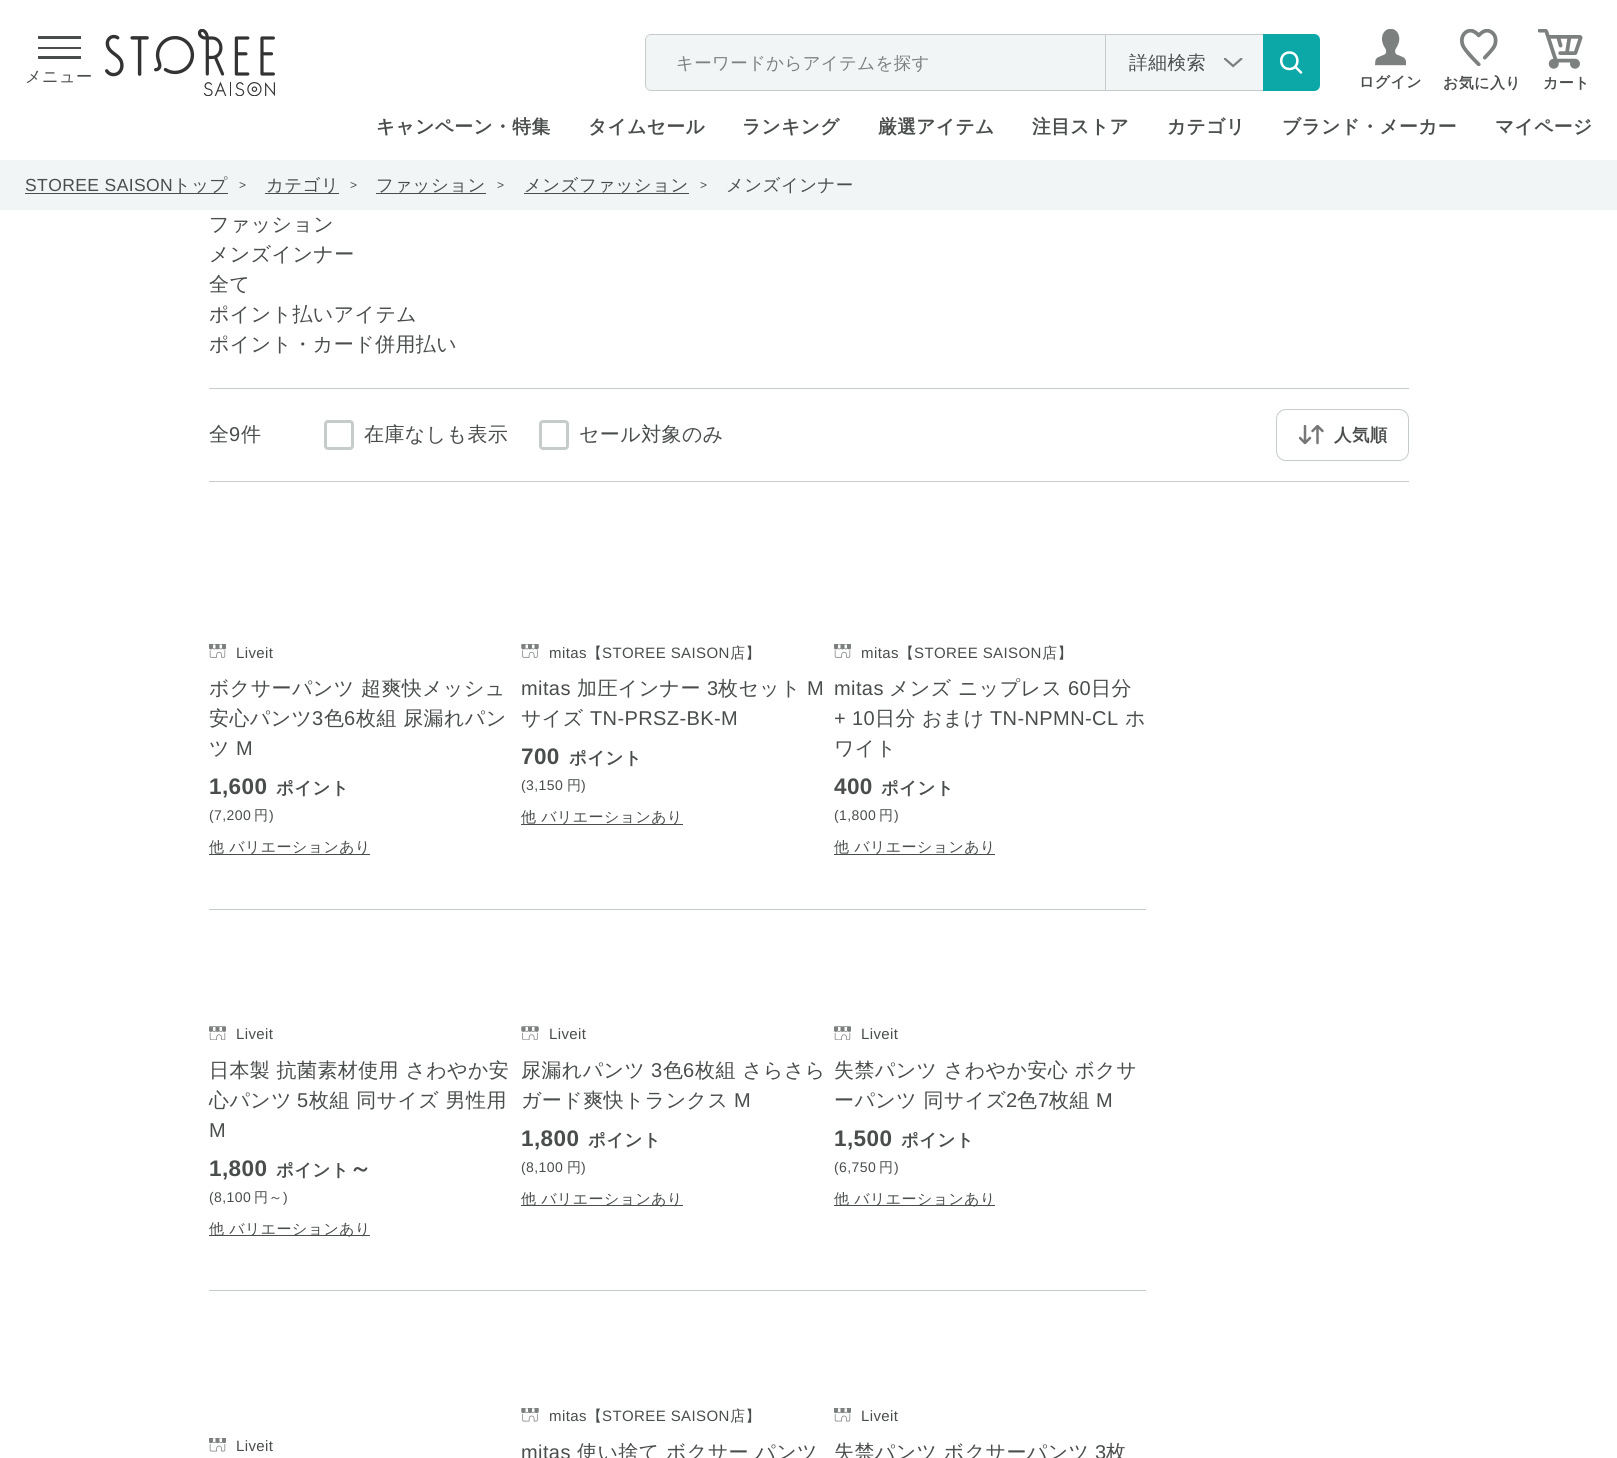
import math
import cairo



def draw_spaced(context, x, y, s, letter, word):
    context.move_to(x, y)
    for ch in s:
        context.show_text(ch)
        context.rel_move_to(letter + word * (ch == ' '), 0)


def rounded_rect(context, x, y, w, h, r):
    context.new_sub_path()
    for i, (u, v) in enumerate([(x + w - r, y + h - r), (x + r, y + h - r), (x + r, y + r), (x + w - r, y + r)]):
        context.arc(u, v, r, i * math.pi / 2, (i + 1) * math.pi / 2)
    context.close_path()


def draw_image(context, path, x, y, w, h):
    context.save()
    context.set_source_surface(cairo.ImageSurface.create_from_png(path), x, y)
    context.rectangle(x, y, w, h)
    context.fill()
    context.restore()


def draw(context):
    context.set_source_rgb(1, 1, 1)
    context.paint()
    context.set_source_rgb(73 / 255, 77 / 255, 76 / 255)
    context.rectangle(38, 36, 43, 3)
    context.fill()
    context.rectangle(38, 47, 43, 2)
    context.fill()
    context.rectangle(38, 56, 43, 3)
    context.fill()
    draw_image(context, "images/1.png", 105, 29, 170, 67)
    context.set_source_rgb(242 / 255, 245 / 255, 245 / 255)
    context.new_path()
    context.move_to(651, 34)
    context.line_to(1106, 34)
    context.line_to(1106, 91)
    context.line_to(651, 91)
    context.curve_to(647.5, 91, 645, 88.5, 645, 85)
    context.line_to(645, 40)
    context.curve_to(645, 36.5, 647.5, 34, 651, 34)
    context.close_path()
    context.fill()
    context.set_source_rgb(198 / 255, 204 / 255, 203 / 255)
    context.set_fill_rule(cairo.FillRule.EVEN_ODD)
    context.new_path()
    context.move_to(651, 34)
    context.line_to(1106, 34)
    context.line_to(1106, 91)
    context.line_to(651, 91)
    context.curve_to(648, 91, 645, 88, 645, 85)
    context.line_to(645, 40)
    context.curve_to(645, 37, 648, 34, 651, 34)
    context.close_path()
    context.move_to(651, 35)
    context.line_to(1106, 35)
    context.line_to(1106, 90)
    context.line_to(651, 90)
    context.curve_to(648, 90, 646, 88, 646, 85)
    context.line_to(646, 40)
    context.curve_to(646, 37, 648, 35, 651, 35)
    context.close_path()
    context.fill()
    context.set_source_rgb(242 / 255, 245 / 255, 245 / 255)
    context.rectangle(1106, 35, 157, 55)
    context.fill()
    context.set_source_rgb(198 / 255, 204 / 255, 203 / 255)
    context.rectangle(1106, 34, 157, 1)
    context.fill()
    context.rectangle(1106, 90, 157, 1)
    context.fill()
    context.rectangle(1105, 35, 1, 55)
    context.fill()
    draw_image(context, "images/2.png", 1224, 58, 19, 10)
    context.set_source_rgb(12 / 255, 168 / 255, 168 / 255)
    context.new_path()
    context.move_to(1263, 34)
    context.line_to(1314, 34)
    context.curve_to(1317.5, 34, 1320, 36.5, 1320, 40)
    context.line_to(1320, 85)
    context.curve_to(1320, 88.5, 1317.5, 91, 1314, 91)
    context.line_to(1263, 91)
    context.close_path()
    context.fill()
    context.new_path()
    context.move_to(1289.5, 69)
    context.curve_to(1300, 69, 1300, 52.5, 1289.5, 52.5)
    context.curve_to(1278.5, 52.5, 1278.5, 69, 1289.5, 69)
    context.close_path()
    context.move_to(1295, 66.5)
    context.line_to(1301, 72.5)
    context.set_source_rgb(1, 1, 1)
    context.set_line_width(2.5)
    context.set_line_cap(cairo.LineCap.ROUND)
    context.set_line_join(cairo.LineJoin.ROUND)
    context.stroke()
    draw_image(context, "images/3.png", 1375, 29, 31, 37)
    draw_image(context, "images/4.png", 1460, 29, 38, 37)
    draw_image(context, "images/5.png", 1538, 29, 45, 40)
    context.set_source_rgb(242 / 255, 245 / 255, 245 / 255)
    context.rectangle(0, 160, 1617, 50)
    context.fill()
    context.set_source_rgb(73 / 255, 77 / 255, 76 / 255)
    context.rectangle(25, 193, 203, 1)
    context.fill()
    context.rectangle(265, 193, 74, 1)
    context.fill()
    context.rectangle(376, 193, 110, 1)
    context.fill()
    context.rectangle(524, 193, 165, 1)
    context.fill()
    context.set_source_rgb(198 / 255, 204 / 255, 203 / 255)
    context.rectangle(209, 388, 1200, 1)
    context.fill()
    context.rectangle(209, 481, 1200, 1)
    context.fill()
    rounded_rect(context, 325.5, 421.5, 27, 27, 2.5)
    context.set_line_width(3)
    context.set_line_cap(cairo.LineCap.BUTT)
    context.set_line_join(cairo.LineJoin.MITER)
    context.stroke()
    rounded_rect(context, 540.5, 421.5, 27, 27, 2.5)
    context.stroke()
    rounded_rect(context, 1276.5, 409.5, 132, 51, 9.5)
    context.set_line_width(1)
    context.stroke()
    context.save()
    context.set_fill_rule(cairo.FillRule.WINDING)
    context.rectangle(1299, 425, 25, 20)
    context.clip()
    context.new_path()
    context.move_to(1305, 426)
    context.line_to(1305, 442.5)
    context.move_to(1310, 438)
    context.line_to(1305, 443)
    context.line_to(1300, 438)
    context.move_to(1317.5, 443)
    context.line_to(1317.5, 427)
    context.move_to(1312.5, 431)
    context.line_to(1317.5, 426)
    context.line_to(1322.5, 431)
    context.set_source_rgb(119 / 255, 119 / 255, 119 / 255)
    context.set_line_width(2.5)
    context.set_line_cap(cairo.LineCap.ROUND)
    context.set_line_join(cairo.LineJoin.ROUND)
    context.stroke()
    context.restore()
    context.rectangle(209, 909, 937, 1)
    context.fill()
    draw_image(context, "images/6.png", 209, 644, 17, 14)
    context.set_source_rgb(73 / 255, 77 / 255, 76 / 255)
    context.rectangle(209, 854, 161, 1)
    context.fill()
    draw_image(context, "images/7.png", 521, 644, 18, 14)
    context.rectangle(521, 824, 162, 1)
    context.fill()
    draw_image(context, "images/6.png", 834, 644, 17, 14)
    context.rectangle(834, 854, 161, 1)
    context.fill()
    context.set_source_rgb(198 / 255, 204 / 255, 203 / 255)
    context.rectangle(209, 1290, 937, 1)
    context.fill()
    draw_image(context, "images/8.png", 209, 1026, 17, 14)
    context.set_source_rgb(73 / 255, 77 / 255, 76 / 255)
    context.rectangle(209, 1235, 161, 1)
    context.fill()
    draw_image(context, "images/9.png", 521, 1026, 18, 14)
    context.rectangle(521, 1205, 162, 1)
    context.fill()
    draw_image(context, "images/8.png", 834, 1026, 17, 14)
    context.rectangle(834, 1205, 161, 1)
    context.fill()
    draw_image(context, "images/10.png", 209, 1438, 17, 14)
    draw_image(context, "images/11.png", 521, 1408, 18, 14)
    draw_image(context, "images/10.png", 834, 1408, 17, 14)
    context.select_font_face("WenQuanYi Zen Hei Medium")
    context.set_font_size(16.25)
    draw_spaced(context, 25, 82, "メニュー", 0.4, 0)
    context.set_font_size(17.5)
    context.set_source_rgb(124 / 255, 128 / 255, 127 / 255)
    draw_spaced(context, 676, 69, "キーワードからアイテムを探す", 0.3, 0)
    context.set_font_size(18.75)
    context.set_source_rgb(73 / 255, 77 / 255, 76 / 255)
    draw_spaced(context, 1129, 69, "詳細検索", 0.5, 0)
    context.select_font_face("WenQuanYi Zen Hei", cairo.FontSlant.NORMAL, cairo.FontWeight.BOLD)
    context.set_font_size(15)
    draw_spaced(context, 1359, 87, "ログイン", 0.4, 0)
    draw_spaced(context, 1443, 88, "お気に入り", 0.4, 0)
    draw_spaced(context, 1543, 88, "カート", 0.4, 0)
    context.set_font_size(18.75)
    draw_spaced(context, 376, 133, "キャンペーン・特集", 0.4, 0)
    draw_spaced(context, 588, 133, "タイムセール", 0.4, 0)
    draw_spaced(context, 742, 133, "ランキング", 0.4, 0)
    draw_spaced(context, 878, 133, "厳選アイテム", 0.4, 0)
    draw_spaced(context, 1032, 133, "注目ストア", 0.4, 0)
    draw_spaced(context, 1167, 133, "カテゴリ", 0.4, 0)
    draw_spaced(context, 1282, 133, "ブランド・メーカー", 0.4, 0)
    draw_spaced(context, 1495, 133, "マイページ", 0.4, 0)
    context.select_font_face("Liberation Sans")
    context.set_font_size(17.5)
    draw_spaced(context, 25, 191, "STOREE SAISON", 0.4, 0)
    context.select_font_face("WenQuanYi Zen Hei Medium")
    draw_spaced(context, 173, 191, "トップ", 0.4, 0)
    context.select_font_face("Liberation Sans")
    context.set_font_size(12)
    draw_spaced(context, 239, 189, ">", 0.4, 0)
    context.select_font_face("WenQuanYi Zen Hei Medium")
    context.set_font_size(17.5)
    draw_spaced(context, 266, 191, "カテゴリ", 0.4, 0)
    context.select_font_face("Liberation Sans")
    context.set_font_size(12)
    draw_spaced(context, 350, 189, ">", 0.4, 0)
    context.select_font_face("WenQuanYi Zen Hei Medium")
    context.set_font_size(17.5)
    draw_spaced(context, 376, 191, "ファッション", 0.4, 0)
    context.select_font_face("Liberation Sans")
    context.set_font_size(12)
    draw_spaced(context, 497, 189, ">", 0.4, 0)
    context.select_font_face("WenQuanYi Zen Hei Medium")
    context.set_font_size(17.5)
    draw_spaced(context, 524, 191, "メンズファッション", 0.4, 0)
    context.select_font_face("Liberation Sans")
    context.set_font_size(12)
    draw_spaced(context, 700, 189, ">", 0.4, 0)
    context.select_font_face("WenQuanYi Zen Hei Medium")
    context.set_font_size(17.5)
    draw_spaced(context, 726, 191, "メンズインナー", 0.4, 0)
    context.set_font_size(20)
    draw_spaced(context, 209, 231, "ファッション", 0.4, 0)
    draw_spaced(context, 209, 261, "メンズインナー", 0.4, 0)
    draw_spaced(context, 209, 291, "全て", 0.4, 0)
    draw_spaced(context, 209, 321, "ポイント払いアイテム", 0.4, 0)
    draw_spaced(context, 209, 351, "ポイント・カード併用払い", 0.4, 0)
    draw_spaced(context, 209, 441, "全", 0.4, 0)
    context.select_font_face("Liberation Sans")
    draw_spaced(context, 229, 441, "9", 0.4, 0)
    context.select_font_face("WenQuanYi Zen Hei Medium")
    draw_spaced(context, 241, 441, "件", 0.4, 0)
    draw_spaced(context, 364, 441, "在庫なしも表示", 0.4, 0)
    draw_spaced(context, 579, 441, "セール対象のみ", 0.4, 0)
    context.select_font_face("WenQuanYi Zen Hei", cairo.FontSlant.NORMAL, cairo.FontWeight.BOLD)
    context.set_font_size(17.5)
    draw_spaced(context, 1334, 441, "人気順", 0.4, 0)
    context.select_font_face("Liberation Sans")
    context.set_font_size(15)
    draw_spaced(context, 236, 658, "Liveit", 0.4, 0)
    context.select_font_face("WenQuanYi Zen Hei Medium")
    context.set_font_size(20)
    draw_spaced(context, 209, 695, "ボクサーパンツ 超爽快メッシュ", 0.4, 0)
    draw_spaced(context, 209, 725, "安心パンツ", 0.4, 0)
    context.select_font_face("Liberation Sans")
    draw_spaced(context, 312, 725, "3", 0.4, 0)
    context.select_font_face("WenQuanYi Zen Hei Medium")
    draw_spaced(context, 324, 725, "色", 0.4, 0)
    context.select_font_face("Liberation Sans")
    draw_spaced(context, 344, 725, "6", 0.4, 0)
    context.select_font_face("WenQuanYi Zen Hei Medium")
    draw_spaced(context, 356, 725, "枚組 尿漏れパン", 0.4, 0)
    draw_spaced(context, 209, 755, "ツ", 0.4, 0)
    context.select_font_face("Liberation Sans")
    draw_spaced(context, 236, 755, "M", 0.4, 0)
    context.select_font_face("Liberation Sans", cairo.FontSlant.NORMAL, cairo.FontWeight.BOLD)
    context.set_font_size(22.5)
    draw_spaced(context, 209, 794, "1,600", 0.4, 0)
    context.select_font_face("WenQuanYi Zen Hei", cairo.FontSlant.NORMAL, cairo.FontWeight.BOLD)
    context.set_font_size(17.5)
    draw_spaced(context, 276, 794, "ポイント", 0.4, 0)
    context.select_font_face("Liberation Sans")
    context.set_font_size(14)
    draw_spaced(context, 209, 820, "(7,200", 0.4, 0)
    context.select_font_face("WenQuanYi Zen Hei Medium")
    draw_spaced(context, 254, 820, "円", 0.4, 0)
    context.select_font_face("Liberation Sans")
    draw_spaced(context, 269, 820, ")", 0.4, 0)
    context.select_font_face("WenQuanYi Zen Hei Medium")
    context.set_font_size(15)
    draw_spaced(context, 209, 852, "他 バリエーションあり", 0.4, 0)
    context.select_font_face("Liberation Sans")
    draw_spaced(context, 549, 658, "mitas", 0.4, 0)
    context.select_font_face("WenQuanYi Zen Hei Medium")
    draw_spaced(context, 587, 658, "【", 0.4, 0)
    context.select_font_face("Liberation Sans")
    draw_spaced(context, 602, 658, "STOREE SAISON", 0.4, 0)
    context.select_font_face("WenQuanYi Zen Hei Medium")
    draw_spaced(context, 730, 658, "店】", 0.4, 0)
    context.select_font_face("Liberation Sans")
    context.set_font_size(20)
    draw_spaced(context, 521, 695, "mitas", 0.4, 0)
    context.select_font_face("WenQuanYi Zen Hei Medium")
    draw_spaced(context, 577, 695, "加圧インナー", 0.4, 0)
    context.select_font_face("Liberation Sans")
    draw_spaced(context, 707, 695, "3", 0.4, 0)
    context.select_font_face("WenQuanYi Zen Hei Medium")
    draw_spaced(context, 718, 695, "枚セット", 0.4, 0)
    context.select_font_face("Liberation Sans")
    draw_spaced(context, 807, 695, "M", 0.4, 0)
    context.select_font_face("WenQuanYi Zen Hei Medium")
    draw_spaced(context, 521, 725, "サイズ", 0.4, 0)
    context.select_font_face("Liberation Sans")
    draw_spaced(context, 590, 725, "TN-PRSZ-BK-M", 0.4, 0)
    context.select_font_face("Liberation Sans", cairo.FontSlant.NORMAL, cairo.FontWeight.BOLD)
    context.set_font_size(22.5)
    draw_spaced(context, 521, 764, "700", 0.4, 0)
    context.select_font_face("WenQuanYi Zen Hei", cairo.FontSlant.NORMAL, cairo.FontWeight.BOLD)
    context.set_font_size(17.5)
    draw_spaced(context, 569, 764, "ポイント", 0.4, 0)
    context.select_font_face("Liberation Sans")
    context.set_font_size(14)
    draw_spaced(context, 521, 790, "(3,150", 0.4, 0)
    context.select_font_face("WenQuanYi Zen Hei Medium")
    draw_spaced(context, 567, 790, "円", 0.4, 0)
    context.select_font_face("Liberation Sans")
    draw_spaced(context, 581, 790, ")", 0.4, 0)
    context.select_font_face("WenQuanYi Zen Hei Medium")
    context.set_font_size(15)
    draw_spaced(context, 521, 822, "他 バリエーションあり", 0.4, 0)
    context.select_font_face("Liberation Sans")
    draw_spaced(context, 861, 658, "mitas", 0.4, 0)
    context.select_font_face("WenQuanYi Zen Hei Medium")
    draw_spaced(context, 899, 658, "【", 0.4, 0)
    context.select_font_face("Liberation Sans")
    draw_spaced(context, 914, 658, "STOREE SAISON", 0.4, 0)
    context.select_font_face("WenQuanYi Zen Hei Medium")
    draw_spaced(context, 1042, 658, "店】", 0.4, 0)
    context.select_font_face("Liberation Sans")
    context.set_font_size(20)
    draw_spaced(context, 834, 695, "mitas", 0.4, 0)
    context.select_font_face("WenQuanYi Zen Hei Medium")
    draw_spaced(context, 889, 695, "メンズ ニップレス", 0.4, 0)
    context.select_font_face("Liberation Sans")
    draw_spaced(context, 1068, 695, "60", 0.4, 0)
    context.select_font_face("WenQuanYi Zen Hei Medium")
    draw_spaced(context, 1091, 695, "日分", 0.4, 0)
    context.select_font_face("Liberation Sans")
    draw_spaced(context, 834, 725, "+ 10", 0.4, 0)
    context.select_font_face("WenQuanYi Zen Hei Medium")
    draw_spaced(context, 875, 725, "日分", 0.4, 0)
    draw_spaced(context, 922, 725, "おまけ", 0.4, 0)
    context.select_font_face("Liberation Sans")
    draw_spaced(context, 990, 725, "TN-NPMN-CL", 0.4, 0)
    context.select_font_face("WenQuanYi Zen Hei Medium")
    draw_spaced(context, 1125, 725, "ホ", 0.4, 0)
    draw_spaced(context, 834, 755, "ワイト", 0.4, 0)
    context.select_font_face("Liberation Sans", cairo.FontSlant.NORMAL, cairo.FontWeight.BOLD)
    context.set_font_size(22.5)
    draw_spaced(context, 834, 794, "400", 0.4, 0)
    context.select_font_face("WenQuanYi Zen Hei", cairo.FontSlant.NORMAL, cairo.FontWeight.BOLD)
    context.set_font_size(17.5)
    draw_spaced(context, 881, 794, "ポイント", 0.4, 0)
    context.select_font_face("Liberation Sans")
    context.set_font_size(14)
    draw_spaced(context, 834, 820, "(1,800", 0.4, 0)
    context.select_font_face("WenQuanYi Zen Hei Medium")
    draw_spaced(context, 879, 820, "円", 0.4, 0)
    context.select_font_face("Liberation Sans")
    draw_spaced(context, 894, 820, ")", 0.4, 0)
    context.select_font_face("WenQuanYi Zen Hei Medium")
    context.set_font_size(15)
    draw_spaced(context, 834, 852, "他 バリエーションあり", 0.4, 0)
    context.select_font_face("Liberation Sans")
    draw_spaced(context, 236, 1039, "Liveit", 0.4, 0)
    context.select_font_face("WenQuanYi Zen Hei Medium")
    context.set_font_size(20)
    draw_spaced(context, 209, 1077, "日本製 抗菌素材使用 さわやか安", 0.4, 0)
    draw_spaced(context, 209, 1107, "心パンツ", 0.4, 0)
    context.select_font_face("Liberation Sans")
    draw_spaced(context, 297, 1107, "5", 0.4, 0)
    context.select_font_face("WenQuanYi Zen Hei Medium")
    draw_spaced(context, 309, 1107, "枚組 同サイズ 男性用", 0.4, 0)
    context.select_font_face("Liberation Sans")
    draw_spaced(context, 209, 1137, "M", 0.4, 0)
    context.select_font_face("Liberation Sans", cairo.FontSlant.NORMAL, cairo.FontWeight.BOLD)
    context.set_font_size(22.5)
    draw_spaced(context, 209, 1176, "1,800", 0.4, 0)
    context.select_font_face("WenQuanYi Zen Hei", cairo.FontSlant.NORMAL, cairo.FontWeight.BOLD)
    context.set_font_size(17.5)
    draw_spaced(context, 276, 1176, "ポイント", 0.4, 0)
    context.set_font_size(22.5)
    draw_spaced(context, 349, 1176, "～", 0.4, 0)
    context.select_font_face("Liberation Sans")
    context.set_font_size(14)
    draw_spaced(context, 209, 1202, "(8,100", 0.4, 0)
    context.select_font_face("WenQuanYi Zen Hei Medium")
    draw_spaced(context, 254, 1202, "円～", 0.4, 0)
    context.select_font_face("Liberation Sans")
    draw_spaced(context, 283, 1202, ")", 0.4, 0)
    context.select_font_face("WenQuanYi Zen Hei Medium")
    context.set_font_size(15)
    draw_spaced(context, 209, 1234, "他 バリエーションあり", 0.4, 0)
    context.select_font_face("Liberation Sans")
    draw_spaced(context, 549, 1039, "Liveit", 0.4, 0)
    context.select_font_face("WenQuanYi Zen Hei Medium")
    context.set_font_size(20)
    draw_spaced(context, 521, 1077, "尿漏れパンツ", 0.4, 0)
    context.select_font_face("Liberation Sans")
    draw_spaced(context, 651, 1077, "3", 0.4, 0)
    context.select_font_face("WenQuanYi Zen Hei Medium")
    draw_spaced(context, 663, 1077, "色", 0.4, 0)
    context.select_font_face("Liberation Sans")
    draw_spaced(context, 683, 1077, "6", 0.4, 0)
    context.select_font_face("WenQuanYi Zen Hei Medium")
    draw_spaced(context, 695, 1077, "枚組 さらさら", 0.4, 0)
    draw_spaced(context, 521, 1107, "ガード爽快トランクス", 0.4, 0)
    context.select_font_face("Liberation Sans")
    draw_spaced(context, 734, 1107, "M", 0.4, 0)
    context.select_font_face("Liberation Sans", cairo.FontSlant.NORMAL, cairo.FontWeight.BOLD)
    context.set_font_size(22.5)
    draw_spaced(context, 521, 1146, "1,800", 0.4, 0)
    context.select_font_face("WenQuanYi Zen Hei", cairo.FontSlant.NORMAL, cairo.FontWeight.BOLD)
    context.set_font_size(17.5)
    draw_spaced(context, 588, 1146, "ポイント", 0.4, 0)
    context.select_font_face("Liberation Sans")
    context.set_font_size(14)
    draw_spaced(context, 521, 1172, "(8,100", 0.4, 0)
    context.select_font_face("WenQuanYi Zen Hei Medium")
    draw_spaced(context, 567, 1172, "円", 0.4, 0)
    context.select_font_face("Liberation Sans")
    draw_spaced(context, 581, 1172, ")", 0.4, 0)
    context.select_font_face("WenQuanYi Zen Hei Medium")
    context.set_font_size(15)
    draw_spaced(context, 521, 1204, "他 バリエーションあり", 0.4, 0)
    context.select_font_face("Liberation Sans")
    draw_spaced(context, 861, 1039, "Liveit", 0.4, 0)
    context.select_font_face("WenQuanYi Zen Hei Medium")
    context.set_font_size(20)
    draw_spaced(context, 834, 1077, "失禁パンツ さわやか安心 ボクサ", 0.4, 0)
    draw_spaced(context, 834, 1107, "ーパンツ 同サイズ", 0.4, 0)
    context.select_font_face("Liberation Sans")
    draw_spaced(context, 1006, 1107, "2", 0.4, 0)
    context.select_font_face("WenQuanYi Zen Hei Medium")
    draw_spaced(context, 1017, 1107, "色", 0.4, 0)
    context.select_font_face("Liberation Sans")
    draw_spaced(context, 1038, 1107, "7", 0.4, 0)
    context.select_font_face("WenQuanYi Zen Hei Medium")
    draw_spaced(context, 1049, 1107, "枚組", 0.4, 0)
    context.select_font_face("Liberation Sans")
    draw_spaced(context, 1096, 1107, "M", 0.4, 0)
    context.select_font_face("Liberation Sans", cairo.FontSlant.NORMAL, cairo.FontWeight.BOLD)
    context.set_font_size(22.5)
    draw_spaced(context, 834, 1146, "1,500", 0.4, 0)
    context.select_font_face("WenQuanYi Zen Hei", cairo.FontSlant.NORMAL, cairo.FontWeight.BOLD)
    context.set_font_size(17.5)
    draw_spaced(context, 901, 1146, "ポイント", 0.4, 0)
    context.select_font_face("Liberation Sans")
    context.set_font_size(14)
    draw_spaced(context, 834, 1172, "(6,750", 0.4, 0)
    context.select_font_face("WenQuanYi Zen Hei Medium")
    draw_spaced(context, 879, 1172, "円", 0.4, 0)
    context.select_font_face("Liberation Sans")
    draw_spaced(context, 894, 1172, ")", 0.4, 0)
    context.select_font_face("WenQuanYi Zen Hei Medium")
    context.set_font_size(15)
    draw_spaced(context, 834, 1204, "他 バリエーションあり", 0.4, 0)
    context.select_font_face("Liberation Sans")
    draw_spaced(context, 236, 1451, "Liveit", 0.4, 0)
    draw_spaced(context, 549, 1421, "mitas", 0.4, 0)
    context.select_font_face("WenQuanYi Zen Hei Medium")
    draw_spaced(context, 587, 1421, "【", 0.4, 0)
    context.select_font_face("Liberation Sans")
    draw_spaced(context, 602, 1421, "STOREE SAISON", 0.4, 0)
    context.select_font_face("WenQuanYi Zen Hei Medium")
    draw_spaced(context, 730, 1421, "店】", 0.4, 0)
    context.select_font_face("Liberation Sans")
    context.set_font_size(20)
    draw_spaced(context, 521, 1459, "mitas", 0.4, 0)
    context.select_font_face("WenQuanYi Zen Hei Medium")
    draw_spaced(context, 577, 1459, "使い捨て ボクサー パンツ", 0.4, 0)
    context.select_font_face("Liberation Sans")
    context.set_font_size(15)
    draw_spaced(context, 861, 1421, "Liveit", 0.4, 0)
    context.select_font_face("WenQuanYi Zen Hei Medium")
    context.set_font_size(20)
    draw_spaced(context, 834, 1459, "失禁パンツ ボクサーパンツ", 0.4, 0)
    context.select_font_face("Liberation Sans")
    draw_spaced(context, 1095, 1459, "3", 0.4, 0)
    context.select_font_face("WenQuanYi Zen Hei Medium")
    draw_spaced(context, 1106, 1459, "枚", 0.4, 0)


surface = cairo.ImageSurface(cairo.Format.RGB24, 1617, 1458)
context = cairo.Context(surface)
options = cairo.FontOptions()
options.set_hint_metrics(cairo.HintMetrics.OFF)
options.set_hint_style(cairo.HintStyle.NONE)
context.set_font_options(options)
context.set_miter_limit(4)
draw(context)
surface.write_to_png("out.png")
